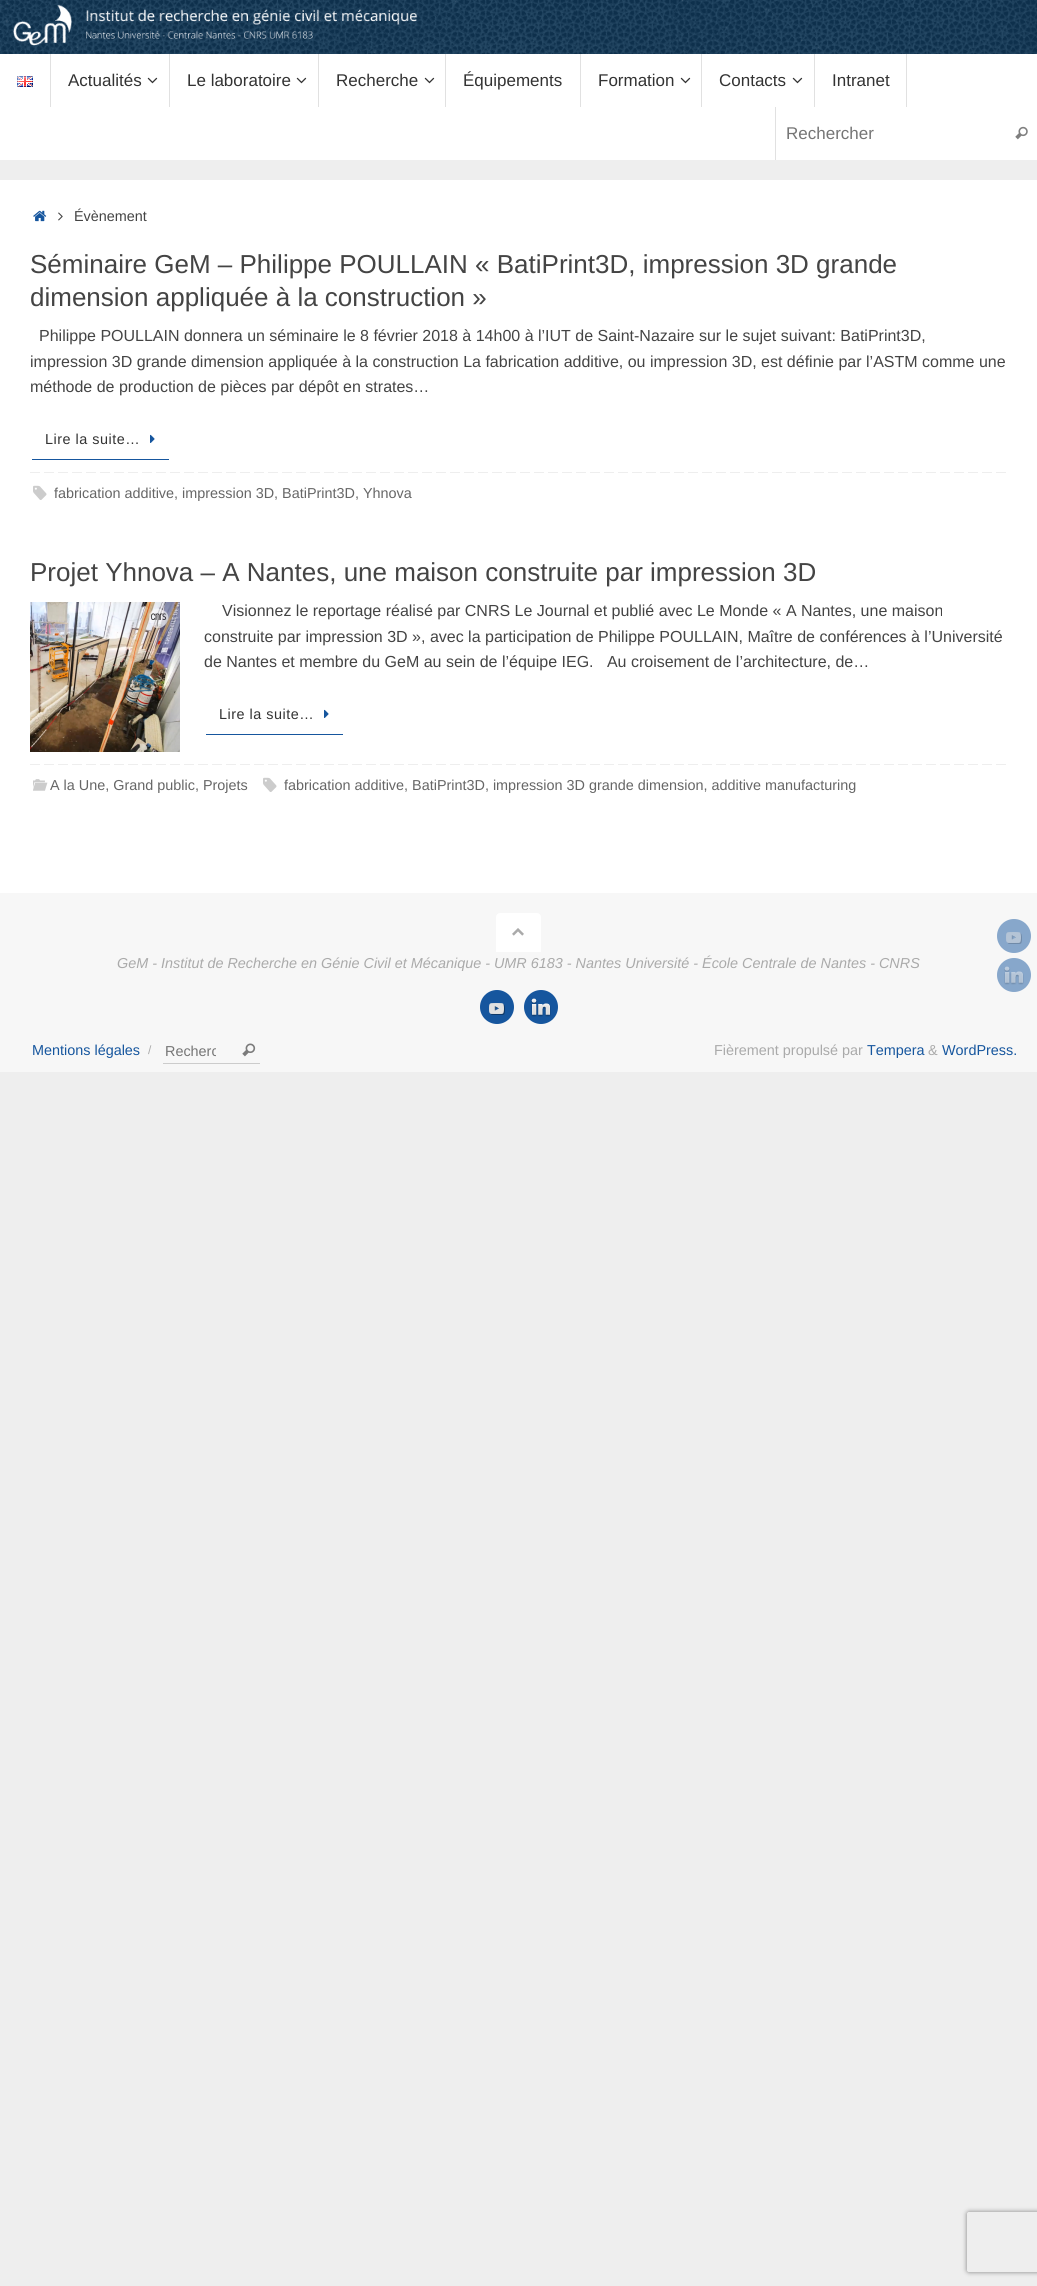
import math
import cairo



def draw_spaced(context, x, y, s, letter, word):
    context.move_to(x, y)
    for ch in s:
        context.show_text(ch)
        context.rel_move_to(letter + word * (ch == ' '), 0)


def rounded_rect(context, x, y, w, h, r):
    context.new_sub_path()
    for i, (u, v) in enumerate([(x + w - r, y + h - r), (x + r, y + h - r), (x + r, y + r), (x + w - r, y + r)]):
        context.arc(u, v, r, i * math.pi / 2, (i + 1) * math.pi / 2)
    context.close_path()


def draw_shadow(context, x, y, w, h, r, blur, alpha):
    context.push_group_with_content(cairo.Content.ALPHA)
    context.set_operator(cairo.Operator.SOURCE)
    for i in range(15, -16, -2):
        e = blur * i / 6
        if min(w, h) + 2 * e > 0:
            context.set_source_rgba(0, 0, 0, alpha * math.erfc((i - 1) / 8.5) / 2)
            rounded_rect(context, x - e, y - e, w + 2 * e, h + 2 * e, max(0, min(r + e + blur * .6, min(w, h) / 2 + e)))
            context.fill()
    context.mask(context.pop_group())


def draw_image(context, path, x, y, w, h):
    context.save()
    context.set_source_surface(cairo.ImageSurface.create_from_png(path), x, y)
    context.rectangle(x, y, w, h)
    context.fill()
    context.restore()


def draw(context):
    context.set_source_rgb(238 / 255, 238 / 255, 238 / 255)
    context.paint()
    draw_image(context, "images/1.png", 0, 0, 1037, 54)
    context.set_source_rgb(1, 1, 1)
    context.rectangle(0, 54, 1037, 106)
    context.fill()
    context.set_source_rgb(225 / 255, 225 / 255, 225 / 255)
    context.rectangle(50, 54, 1, 53)
    context.fill()
    draw_image(context, "images/2.png", 17, 76, 16, 11)
    context.rectangle(169, 54, 1, 53)
    context.fill()
    draw_image(context, "images/3.png", 147, 77, 11, 7)
    context.rectangle(318, 54, 1, 53)
    context.fill()
    draw_image(context, "images/3.png", 296, 77, 11, 7)
    context.rectangle(445, 54, 1, 53)
    context.fill()
    draw_image(context, "images/3.png", 424, 77, 11, 7)
    context.rectangle(580, 54, 1, 53)
    context.fill()
    context.rectangle(701, 54, 1, 53)
    context.fill()
    draw_image(context, "images/3.png", 680, 77, 11, 7)
    context.rectangle(814, 54, 1, 53)
    context.fill()
    draw_image(context, "images/3.png", 792, 77, 11, 7)
    context.rectangle(906, 54, 1, 53)
    context.fill()
    context.rectangle(775, 107, 1, 53)
    context.fill()
    draw_image(context, "images/4.png", 1015, 126, 13, 14)
    context.set_source_rgb(1, 1, 1)
    context.rectangle(0, 180, 1037, 713)
    context.fill()
    draw_image(context, "images/5.png", 33, 210, 14, 12)
    draw_image(context, "images/6.png", 58, 212, 5, 9)
    context.set_source_rgb(22 / 255, 86 / 255, 158 / 255)
    context.rectangle(32, 459, 137, 1)
    context.fill()
    draw_image(context, "images/7.png", 150, 434, 5, 9)
    draw_image(context, "images/8.png", 30, 472, 976, 1)
    draw_image(context, "images/9.png", 33, 485, 14, 15)
    draw_image(context, "images/10.png", 30, 602, 150, 150)
    context.rectangle(206, 734, 137, 1)
    context.fill()
    draw_image(context, "images/7.png", 324, 709, 5, 9)
    draw_image(context, "images/8.png", 30, 764, 976, 1)
    draw_image(context, "images/11.png", 33, 779, 15, 12)
    draw_image(context, "images/9.png", 263, 777, 14, 15)
    context.set_source_rgb(247 / 255, 247 / 255, 247 / 255)
    context.rectangle(0, 893, 1037, 179)
    context.fill()
    context.set_source_rgb(1, 1, 1)
    context.new_path()
    context.move_to(500, 913)
    context.line_to(537, 913)
    context.curve_to(539, 913, 541, 915, 541, 917)
    context.line_to(541, 952)
    context.line_to(496, 952)
    context.line_to(496, 917)
    context.curve_to(496, 915, 498, 913, 500, 913)
    context.close_path()
    context.fill()
    draw_image(context, "images/12.png", 512, 928, 12, 8)
    context.set_source_rgb(22 / 255, 86 / 255, 158 / 255)
    context.arc(497, 1007, 17, 0, 2 * math.pi)
    context.fill()
    draw_image(context, "images/13.png", 489, 1003, 16, 12)
    context.arc(541, 1007, 17, 0, 2 * math.pi)
    context.fill()
    draw_image(context, "images/14.png", 531, 998, 20, 19)
    context.set_source_rgb(204 / 255, 204 / 255, 204 / 255)
    context.rectangle(163, 1063, 97, 1)
    context.fill()
    draw_image(context, "images/15.png", 242, 1043, 14, 14)
    context.set_source_rgb(135 / 255, 167 / 255, 203 / 255)
    context.arc(1014, 936, 17, 0, 2 * math.pi)
    context.fill()
    draw_image(context, "images/16.png", 1006, 932, 16, 12)
    context.arc(1014, 975, 17, 0, 2 * math.pi)
    context.fill()
    draw_image(context, "images/17.png", 1004, 966, 20, 19)
    context.save()
    context.set_fill_rule(cairo.FillRule.EVEN_ODD)
    context.new_path()
    context.move_to(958, 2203)
    context.line_to(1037, 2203)
    context.line_to(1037, 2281)
    context.line_to(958, 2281)
    context.close_path()
    context.move_to(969, 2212)
    context.line_to(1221, 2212)
    context.curve_to(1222, 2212, 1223, 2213, 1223, 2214)
    context.line_to(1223, 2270)
    context.curve_to(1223, 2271, 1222, 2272, 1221, 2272)
    context.line_to(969, 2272)
    context.curve_to(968, 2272, 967, 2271, 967, 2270)
    context.line_to(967, 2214)
    context.curve_to(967, 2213, 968, 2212, 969, 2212)
    context.close_path()
    context.clip()
    context.set_source_rgb(128 / 255, 128 / 255, 128 / 255)
    draw_shadow(context, 967, 2212, 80, 60, 2, 2.5, 1)
    context.restore()
    context.select_font_face("Liberation Sans")
    context.set_font_size(17)
    context.set_source_rgb(51 / 255, 51 / 255, 51 / 255)
    context.move_to(68, 86)
    context.show_text("Actualités")
    context.move_to(187, 86)
    context.show_text("Le laboratoire")
    context.move_to(336, 86)
    context.show_text("Recherche")
    context.move_to(463, 86)
    context.show_text("Équipements")
    context.move_to(598, 86)
    context.show_text("Formation")
    context.move_to(719, 86)
    context.show_text("Contacts")
    context.move_to(832, 86)
    context.show_text("Intranet")
    context.set_source_rgb(117 / 255, 117 / 255, 117 / 255)
    context.move_to(786, 139)
    context.show_text("Rechercher")
    context.set_font_size(14.4)
    context.set_source_rgb(68 / 255, 68 / 255, 68 / 255)
    context.move_to(74, 221)
    context.show_text("Évènement")
    context.set_font_size(26)
    context.move_to(30, 273)
    context.show_text("Séminaire GeM – Philippe POULLAIN « BatiPrint3D, impression 3D grande")
    context.move_to(30, 306)
    context.show_text("dimension appliquée à la construction »")
    context.set_font_size(16)
    context.move_to(39, 341)
    context.show_text("Philippe POULLAIN donnera un séminaire le 8 février 2018 à 14h00 à l’IUT de Saint-Nazaire sur le sujet suivant: BatiPrint3D,")
    context.move_to(30, 367)
    context.show_text("impression 3D grande dimension appliquée à la construction La fabrication additive, ou impression 3D, est définie par l’ASTM comme une")
    context.move_to(30, 392)
    context.show_text("méthode de production de pièces par dépôt en strates…")
    context.set_font_size(14.4)
    context.set_source_rgb(51 / 255, 51 / 255, 51 / 255)
    draw_spaced(context, 45, 444, "Lire la suite…", 0.5, 0)
    context.set_source_rgb(102 / 255, 102 / 255, 102 / 255)
    context.move_to(54, 498)
    context.show_text("fabrication additive, impression 3D, BatiPrint3D, Yhnova")
    context.set_font_size(26)
    context.set_source_rgb(68 / 255, 68 / 255, 68 / 255)
    context.move_to(30, 581)
    context.show_text("Projet Yhnova – A Nantes, une maison construite par impression 3D")
    context.set_font_size(16)
    context.move_to(222, 616)
    context.show_text("Visionnez le reportage réalisé par CNRS Le Journal et publié avec Le Monde « A Nantes, une maison")
    context.move_to(204, 642)
    context.show_text("construite par impression 3D », avec la participation de Philippe POULLAIN, Maître de conférences à l’Université")
    context.move_to(204, 667)
    context.show_text("de Nantes et membre du GeM au sein de l’équipe IEG.   Au croisement de l’architecture, de…")
    context.set_font_size(14.4)
    context.set_source_rgb(51 / 255, 51 / 255, 51 / 255)
    draw_spaced(context, 219, 719, "Lire la suite…", 0.5, 0)
    context.set_source_rgb(102 / 255, 102 / 255, 102 / 255)
    context.move_to(50, 790)
    context.show_text("A la Une, Grand public, Projets")
    context.move_to(284, 790)
    context.show_text("fabrication additive, BatiPrint3D, impression 3D grande dimension, additive manufacturing")
    context.select_font_face("Liberation Sans", cairo.FontSlant.ITALIC)
    context.set_source_rgb(170 / 255, 170 / 255, 170 / 255)
    context.move_to(117, 968)
    context.show_text("GeM - Institut de Recherche en Génie Civil et Mécanique - UMR 6183 - Nantes Université - École Centrale de Nantes - CNRS")
    context.select_font_face("Liberation Sans")
    context.set_source_rgb(22 / 255, 86 / 255, 158 / 255)
    context.move_to(32, 1055)
    context.show_text("Mentions légales")
    context.set_font_size(12)
    context.set_source_rgb(170 / 255, 170 / 255, 170 / 255)
    context.move_to(148, 1054)
    context.show_text("/")
    context.save()
    context.rectangle(165, 1043, 51, 16)
    context.clip()
    context.set_font_size(14.4)
    context.set_source_rgb(117 / 255, 117 / 255, 117 / 255)
    context.move_to(165, 1056)
    context.show_text("Recherc")
    context.restore()
    context.set_font_size(14.4)
    context.move_to(714, 1055)
    context.show_text("Fièrement propulsé par")
    context.set_source_rgb(22 / 255, 86 / 255, 158 / 255)
    context.move_to(867, 1055)
    context.show_text("Tempera")
    context.set_source_rgb(170 / 255, 170 / 255, 170 / 255)
    context.move_to(928, 1055)
    context.show_text("&")
    context.set_source_rgb(22 / 255, 86 / 255, 158 / 255)
    context.move_to(942, 1055)
    context.show_text("WordPress.")


surface = cairo.ImageSurface(cairo.Format.RGB24, 1037, 2286)
context = cairo.Context(surface)
options = cairo.FontOptions()
options.set_hint_metrics(cairo.HintMetrics.OFF)
options.set_hint_style(cairo.HintStyle.NONE)
context.set_font_options(options)
context.set_miter_limit(4)
draw(context)
surface.write_to_png("out.png")
